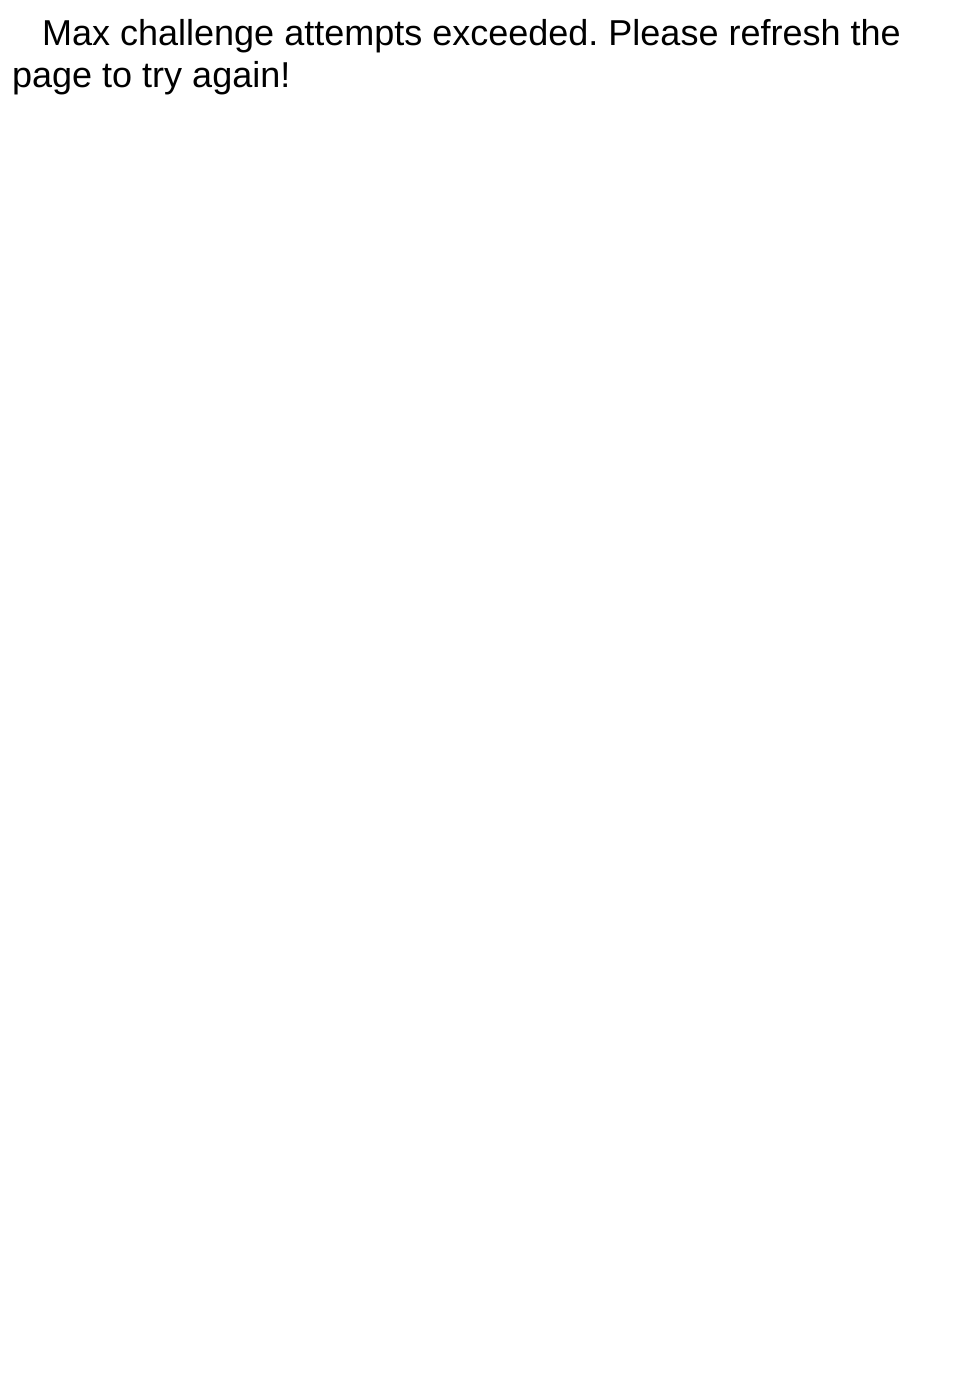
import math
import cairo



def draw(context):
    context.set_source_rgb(1, 1, 1)
    context.paint()
    context.select_font_face("Liberation Sans")
    context.set_font_size(36)
    context.set_source_rgb(0, 0, 0)
    context.move_to(42, 45)
    context.show_text("Max challenge attempts exceeded. Please refresh the")
    context.move_to(12, 87)
    context.show_text("page to try again!")


surface = cairo.ImageSurface(cairo.Format.RGB24, 957, 1374)
context = cairo.Context(surface)
options = cairo.FontOptions()
options.set_hint_metrics(cairo.HintMetrics.OFF)
options.set_hint_style(cairo.HintStyle.NONE)
context.set_font_options(options)
context.set_miter_limit(4)
draw(context)
surface.write_to_png("out.png")
